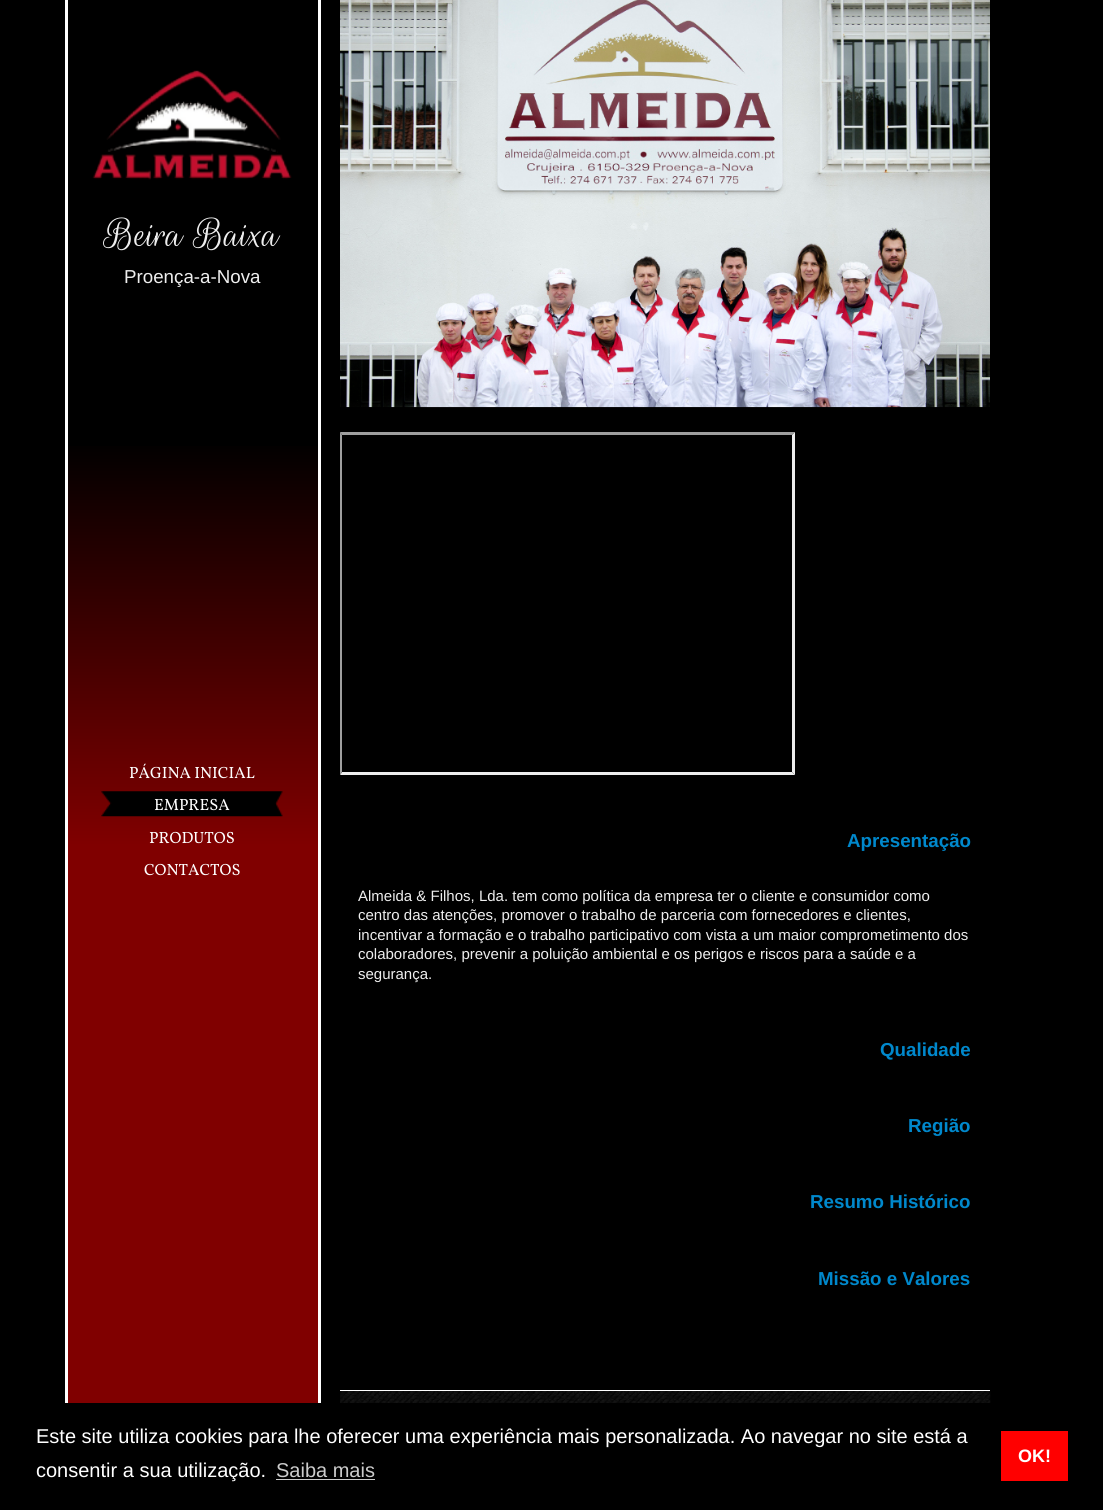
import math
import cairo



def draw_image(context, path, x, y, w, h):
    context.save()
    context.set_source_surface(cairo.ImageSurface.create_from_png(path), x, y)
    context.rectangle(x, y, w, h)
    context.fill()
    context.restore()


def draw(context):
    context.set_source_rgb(0, 0, 0)
    context.paint()
    gradient = cairo.LinearGradient(192, 0, 193, 1510)
    gradient.add_color_stop_rgba(0, 0, 0, 0, 1)
    gradient.add_color_stop_rgba(0.29, 0, 0, 0, 1)
    gradient.add_color_stop_rgba(0.56, 128 / 255, 0, 0, 1)
    gradient.add_color_stop_rgba(1, 128 / 255, 0, 0, 1)
    context.set_source(gradient)
    context.rectangle(68, 446, 250, 957)
    context.fill()
    context.set_source_rgb(1, 1, 1)
    context.rectangle(318, 0, 3, 1403)
    context.fill()
    context.rectangle(65, 0, 3, 1403)
    context.fill()
    draw_image(context, "images/1.png", 92, 70, 200, 110)
    draw_image(context, "images/2.png", 101, 791, 182, 26)
    draw_image(context, "images/3.png", 340, 0, 650, 408)
    context.set_source_rgb(159 / 255, 159 / 255, 159 / 255)
    context.new_path()
    context.move_to(340, 432)
    context.line_to(795, 432)
    context.line_to(792, 435)
    context.line_to(342, 435)
    context.close_path()
    context.fill()
    context.set_source_rgb(238 / 255, 238 / 255, 238 / 255)
    context.new_path()
    context.move_to(795, 432)
    context.line_to(795, 775)
    context.line_to(792, 772)
    context.line_to(792, 435)
    context.close_path()
    context.fill()
    context.new_path()
    context.move_to(795, 775)
    context.line_to(340, 775)
    context.line_to(342, 772)
    context.line_to(792, 772)
    context.close_path()
    context.fill()
    context.set_source_rgb(159 / 255, 159 / 255, 159 / 255)
    context.new_path()
    context.move_to(340, 775)
    context.line_to(340, 432)
    context.line_to(342, 435)
    context.line_to(342, 772)
    context.close_path()
    context.fill()
    draw_image(context, "images/4.png", 340, 1390, 651, 13)
    context.set_source_rgb(1, 1, 1)
    context.rectangle(340, 1390, 650, 1)
    context.fill()
    context.set_source_rgb(204 / 255, 204 / 255, 204 / 255)
    context.rectangle(276, 1479, 99, 1)
    context.fill()
    context.set_source_rgb(1, 0, 0)
    context.rectangle(1001, 1431, 67, 50)
    context.fill()
    context.select_font_face("Rouge Script")
    context.set_font_size(43.75)
    context.set_source_rgb(238 / 255, 238 / 255, 238 / 255)
    context.move_to(104, 246)
    context.show_text("Beira Baixa")
    context.select_font_face("Liberation Sans")
    context.set_font_size(18.75)
    context.move_to(124, 283)
    context.show_text("Proença-a-Nova")
    context.select_font_face("Vollkorn")
    context.set_font_size(16.25)
    context.set_source_rgb(1, 1, 1)
    context.move_to(129, 778)
    context.show_text("PÁGINA INICIAL")
    context.move_to(154, 810)
    context.show_text("EMPRESA")
    context.move_to(149, 843)
    context.show_text("PRODUTOS")
    context.move_to(144, 875)
    context.show_text("CONTACTOS")
    context.select_font_face("Liberation Sans", cairo.FontSlant.NORMAL, cairo.FontWeight.BOLD)
    context.set_font_size(18.75)
    context.set_source_rgb(0, 136 / 255, 204 / 255)
    context.move_to(847, 847)
    context.show_text("Apresentação")
    context.select_font_face("Liberation Sans")
    context.set_font_size(15)
    context.set_source_rgb(238 / 255, 238 / 255, 238 / 255)
    context.move_to(358, 901)
    context.show_text("Almeida & Filhos, Lda. tem como política da empresa ter o cliente e consumidor como")
    context.move_to(358, 920)
    context.show_text("centro das atenções, promover o trabalho de parceria com fornecedores e clientes,")
    context.move_to(358, 940)
    context.show_text("incentivar a formação e o trabalho participativo com vista a um maior comprometimento dos")
    context.move_to(358, 959)
    context.show_text("colaboradores, prevenir a poluição ambiental e os perigos e riscos para a saúde e a")
    context.move_to(358, 979)
    context.show_text("segurança.")
    context.select_font_face("Liberation Sans", cairo.FontSlant.NORMAL, cairo.FontWeight.BOLD)
    context.set_font_size(18.75)
    context.set_source_rgb(0, 136 / 255, 204 / 255)
    context.move_to(880, 1056)
    context.show_text("Qualidade")
    context.move_to(908, 1132)
    context.show_text("Região")
    context.move_to(810, 1208)
    context.show_text("Resumo Histórico")
    context.move_to(818, 1285)
    context.show_text("Missão e Valores")
    context.select_font_face("Liberation Sans")
    context.set_font_size(20)
    context.set_source_rgb(1, 1, 1)
    context.move_to(36, 1443)
    context.show_text("Este site utiliza cookies para lhe oferecer uma experiência mais personalizada. Ao navegar no site está a")
    context.move_to(36, 1477)
    context.show_text("consentir a sua utilização.")
    context.set_source_rgb(204 / 255, 204 / 255, 204 / 255)
    context.move_to(276, 1477)
    context.show_text("Saiba mais")
    context.select_font_face("Liberation Sans", cairo.FontSlant.NORMAL, cairo.FontWeight.BOLD)
    context.set_font_size(18)
    context.set_source_rgb(1, 1, 1)
    context.move_to(1018, 1462)
    context.show_text("OK!")


surface = cairo.ImageSurface(cairo.Format.RGB24, 1103, 1510)
context = cairo.Context(surface)
options = cairo.FontOptions()
options.set_hint_metrics(cairo.HintMetrics.OFF)
options.set_hint_style(cairo.HintStyle.NONE)
context.set_font_options(options)
context.set_miter_limit(4)
draw(context)
surface.write_to_png("out.png")
